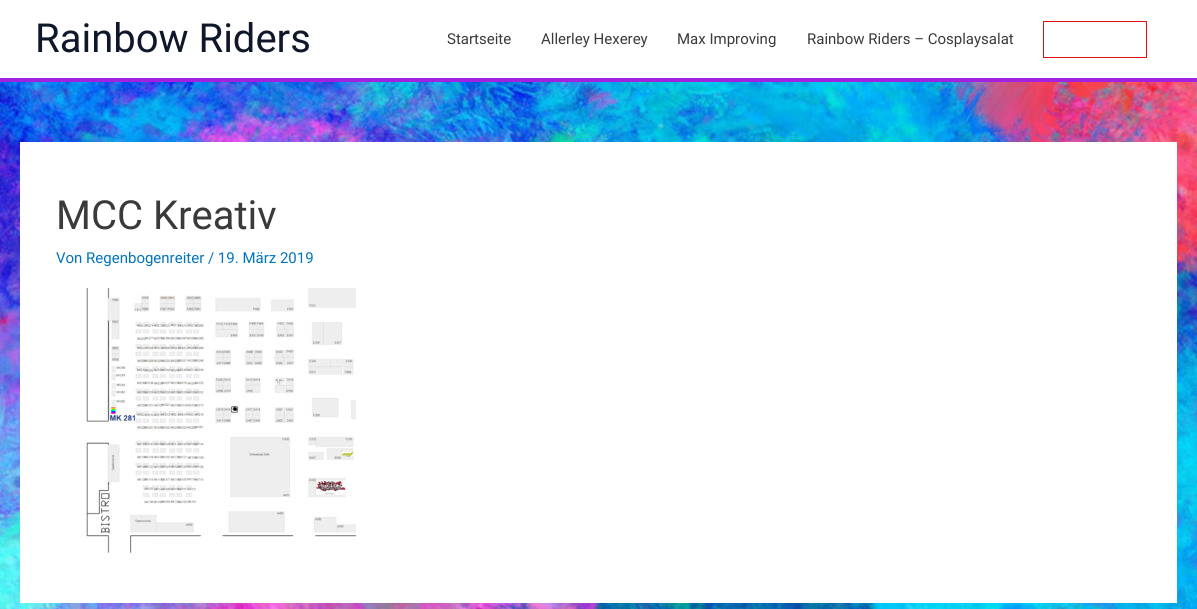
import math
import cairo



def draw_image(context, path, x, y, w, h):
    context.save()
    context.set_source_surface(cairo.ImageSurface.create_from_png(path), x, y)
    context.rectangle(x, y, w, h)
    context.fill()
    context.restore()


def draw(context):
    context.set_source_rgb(1, 1, 1)
    context.paint()
    draw_image(context, "images/1.png", 0, 82, 1197, 527)
    context.set_source_rgb(161 / 255, 35 / 255, 224 / 255)
    context.rectangle(0, 78, 1197, 4)
    context.fill()
    context.rectangle(1043.5, 21.5, 103, 36)
    context.set_source_rgb(226 / 255, 16 / 255, 16 / 255)
    context.set_line_width(1)
    context.stroke()
    context.set_source_rgb(1, 1, 1)
    context.rectangle(20, 142, 1157, 461)
    context.fill()
    draw_image(context, "images/2.png", 80, 288, 276, 265)
    context.select_font_face("Roboto")
    context.set_font_size(40)
    context.set_source_rgb(15 / 255, 23 / 255, 42 / 255)
    context.move_to(35, 52)
    context.show_text("Rainbow Riders")
    context.set_font_size(15)
    context.set_source_rgb(58 / 255, 58 / 255, 58 / 255)
    context.move_to(447, 44)
    context.show_text("Startseite")
    context.move_to(541, 44)
    context.show_text("Allerley Hexerey")
    context.move_to(677, 44)
    context.show_text("Max Improving")
    context.move_to(807, 44)
    context.show_text("Rainbow Riders – Cosplaysalat")
    context.set_font_size(40)
    context.move_to(56, 229)
    context.show_text("MCC Kreativ")
    context.set_font_size(15)
    context.set_source_rgb(2 / 255, 116 / 255, 190 / 255)
    context.move_to(56, 263)
    context.show_text("Von Regenbogenreiter / 19. März 2019")


surface = cairo.ImageSurface(cairo.Format.RGB24, 1197, 609)
context = cairo.Context(surface)
options = cairo.FontOptions()
options.set_hint_metrics(cairo.HintMetrics.OFF)
options.set_hint_style(cairo.HintStyle.NONE)
context.set_font_options(options)
context.set_miter_limit(4)
draw(context)
surface.write_to_png("out.png")
